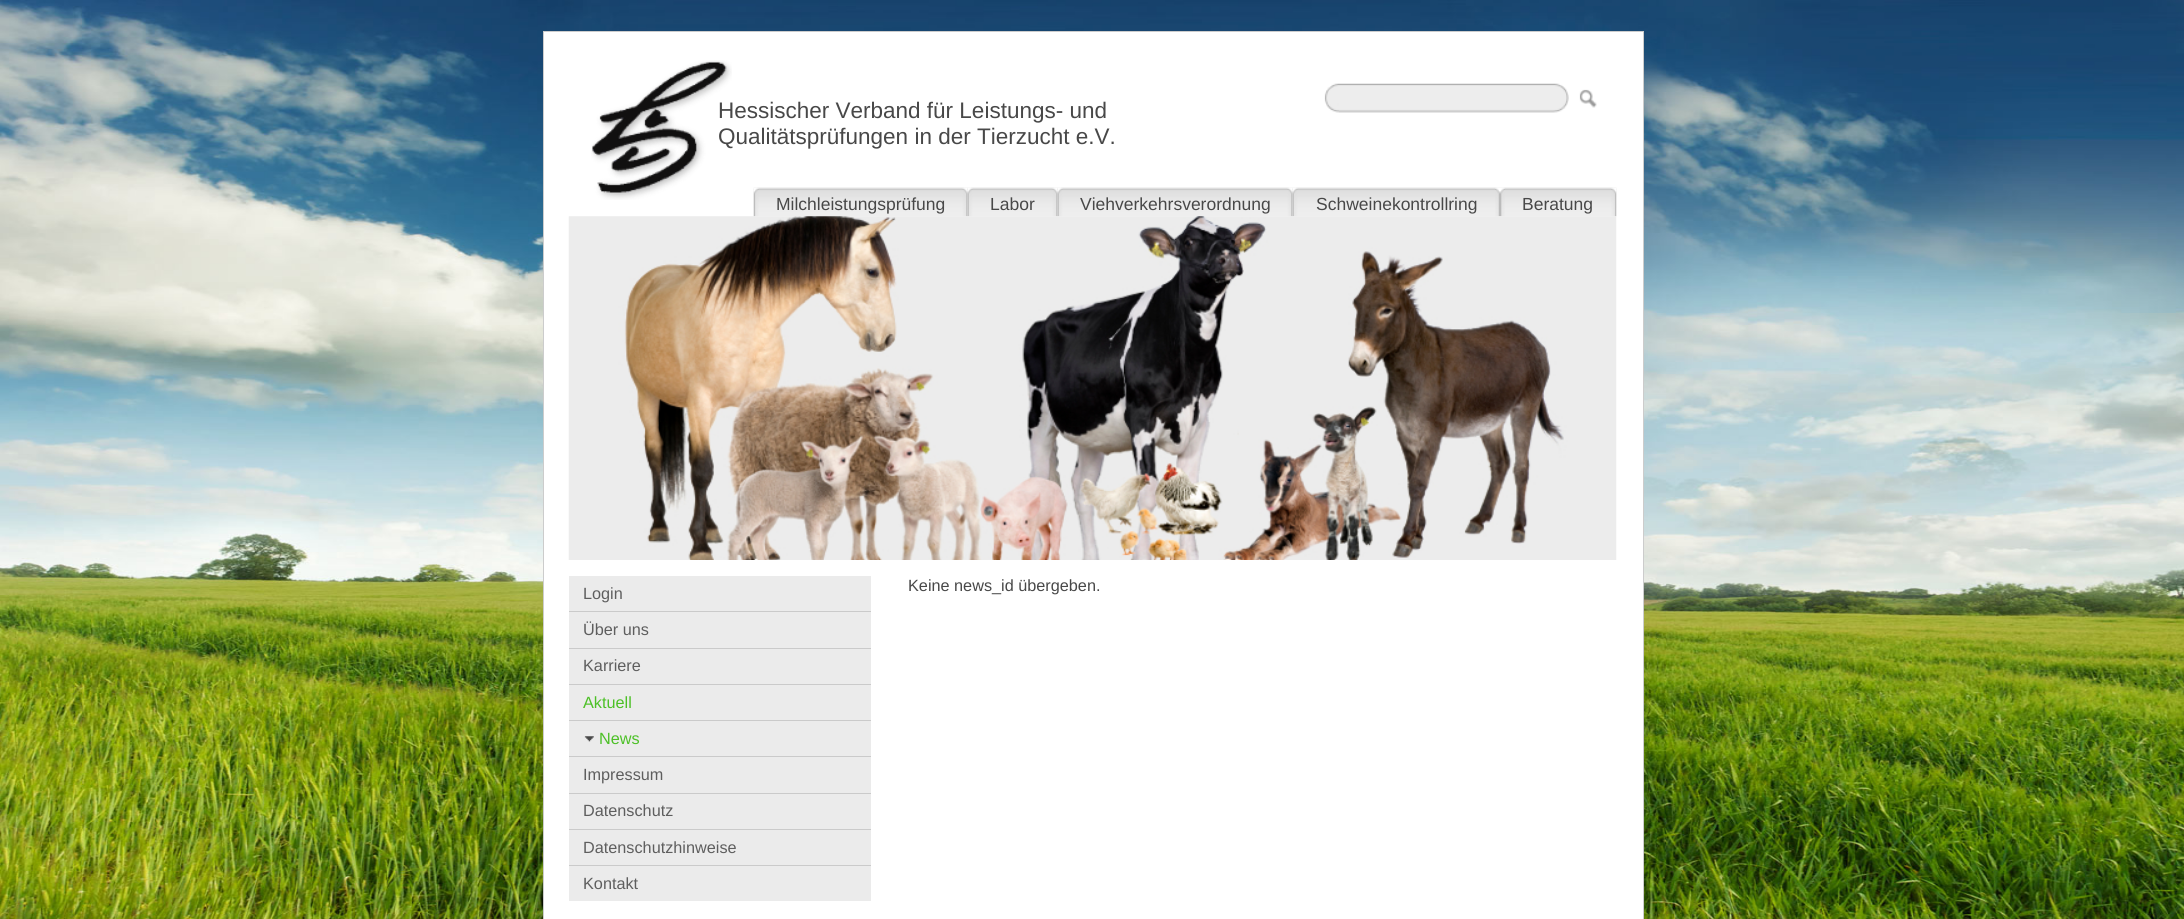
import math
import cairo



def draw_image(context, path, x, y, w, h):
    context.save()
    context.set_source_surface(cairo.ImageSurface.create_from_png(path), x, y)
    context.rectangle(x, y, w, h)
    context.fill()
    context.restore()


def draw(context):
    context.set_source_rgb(1, 1, 1)
    context.paint()
    draw_image(context, "images/1.png", 0, 0, 2184, 919)
    context.set_source_rgb(1, 1, 1)
    context.rectangle(543.5, 31.5, 1100, 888)
    context.fill_preserve()
    context.set_source_rgb(204 / 255, 204 / 255, 204 / 255)
    context.set_line_width(1)
    context.stroke()
    draw_image(context, "images/2.png", 591, 60, 141, 140)
    draw_image(context, "images/3.png", 1324, 83, 245, 30)
    draw_image(context, "images/4.png", 1579, 89, 18, 19)
    draw_image(context, "images/5.png", 753, 187, 215, 30)
    draw_image(context, "images/6.png", 753, 187, 6, 30)
    draw_image(context, "images/7.png", 962, 187, 6, 30)
    draw_image(context, "images/8.png", 967, 187, 91, 30)
    draw_image(context, "images/9.png", 967, 187, 6, 30)
    draw_image(context, "images/7.png", 1052, 187, 6, 30)
    draw_image(context, "images/10.png", 1057, 187, 236, 30)
    draw_image(context, "images/9.png", 1057, 187, 6, 30)
    draw_image(context, "images/7.png", 1287, 187, 6, 30)
    draw_image(context, "images/11.png", 1292, 187, 208, 30)
    draw_image(context, "images/9.png", 1292, 187, 6, 30)
    draw_image(context, "images/12.png", 1495, 187, 5, 30)
    draw_image(context, "images/13.png", 1500, 187, 117, 30)
    draw_image(context, "images/14.png", 1500, 187, 5, 30)
    draw_image(context, "images/15.png", 1611, 187, 6, 30)
    draw_image(context, "images/16.png", 568, 216, 1049, 344)
    context.set_source_rgb(235 / 255, 235 / 255, 235 / 255)
    context.rectangle(569, 576, 302, 325)
    context.fill()
    context.set_source_rgb(202 / 255, 202 / 255, 202 / 255)
    context.rectangle(569, 611, 302, 1)
    context.fill()
    context.rectangle(569, 648, 302, 1)
    context.fill()
    context.rectangle(569, 684, 302, 1)
    context.fill()
    context.rectangle(569, 720, 302, 1)
    context.fill()
    draw_image(context, "images/17.png", 584, 736, 10, 6)
    context.rectangle(569, 756, 302, 1)
    context.fill()
    context.rectangle(569, 793, 302, 1)
    context.fill()
    context.rectangle(569, 829, 302, 1)
    context.fill()
    context.rectangle(569, 865, 302, 1)
    context.fill()
    context.select_font_face("Liberation Sans")
    context.set_font_size(22.5)
    context.set_source_rgb(72 / 255, 72 / 255, 72 / 255)
    context.move_to(718, 118)
    context.show_text("Hessischer Verband für Leistungs- und")
    context.move_to(718, 144)
    context.show_text("Qualitätsprüfungen in der Tierzucht e.V.")
    context.set_font_size(17.5)
    context.move_to(776, 210)
    context.show_text("Milchleistungsprüfung")
    context.move_to(990, 210)
    context.show_text("Labor")
    context.move_to(1080, 210)
    context.show_text("Viehverkehrsverordnung")
    context.move_to(1316, 210)
    context.show_text("Schweinekontrollring")
    context.move_to(1522, 210)
    context.show_text("Beratung")
    context.set_font_size(16.25)
    context.set_source_rgb(94 / 255, 94 / 255, 94 / 255)
    context.move_to(583, 599)
    context.show_text("Login")
    context.move_to(583, 635)
    context.show_text("Über uns")
    context.move_to(583, 671)
    context.show_text("Karriere")
    context.set_source_rgb(76 / 255, 192 / 255, 38 / 255)
    context.move_to(583, 708)
    context.show_text("Aktuell")
    context.move_to(599, 744)
    context.show_text("News")
    context.set_source_rgb(94 / 255, 94 / 255, 94 / 255)
    context.move_to(583, 780)
    context.show_text("Impressum")
    context.move_to(583, 816)
    context.show_text("Datenschutz")
    context.move_to(583, 853)
    context.show_text("Datenschutzhinweise")
    context.move_to(583, 889)
    context.show_text("Kontakt")
    context.set_source_rgb(72 / 255, 72 / 255, 72 / 255)
    context.move_to(908, 591)
    context.show_text("Keine news_id übergeben.")


surface = cairo.ImageSurface(cairo.Format.RGB24, 2184, 919)
context = cairo.Context(surface)
options = cairo.FontOptions()
options.set_hint_metrics(cairo.HintMetrics.OFF)
options.set_hint_style(cairo.HintStyle.NONE)
context.set_font_options(options)
context.set_miter_limit(4)
draw(context)
surface.write_to_png("out.png")
